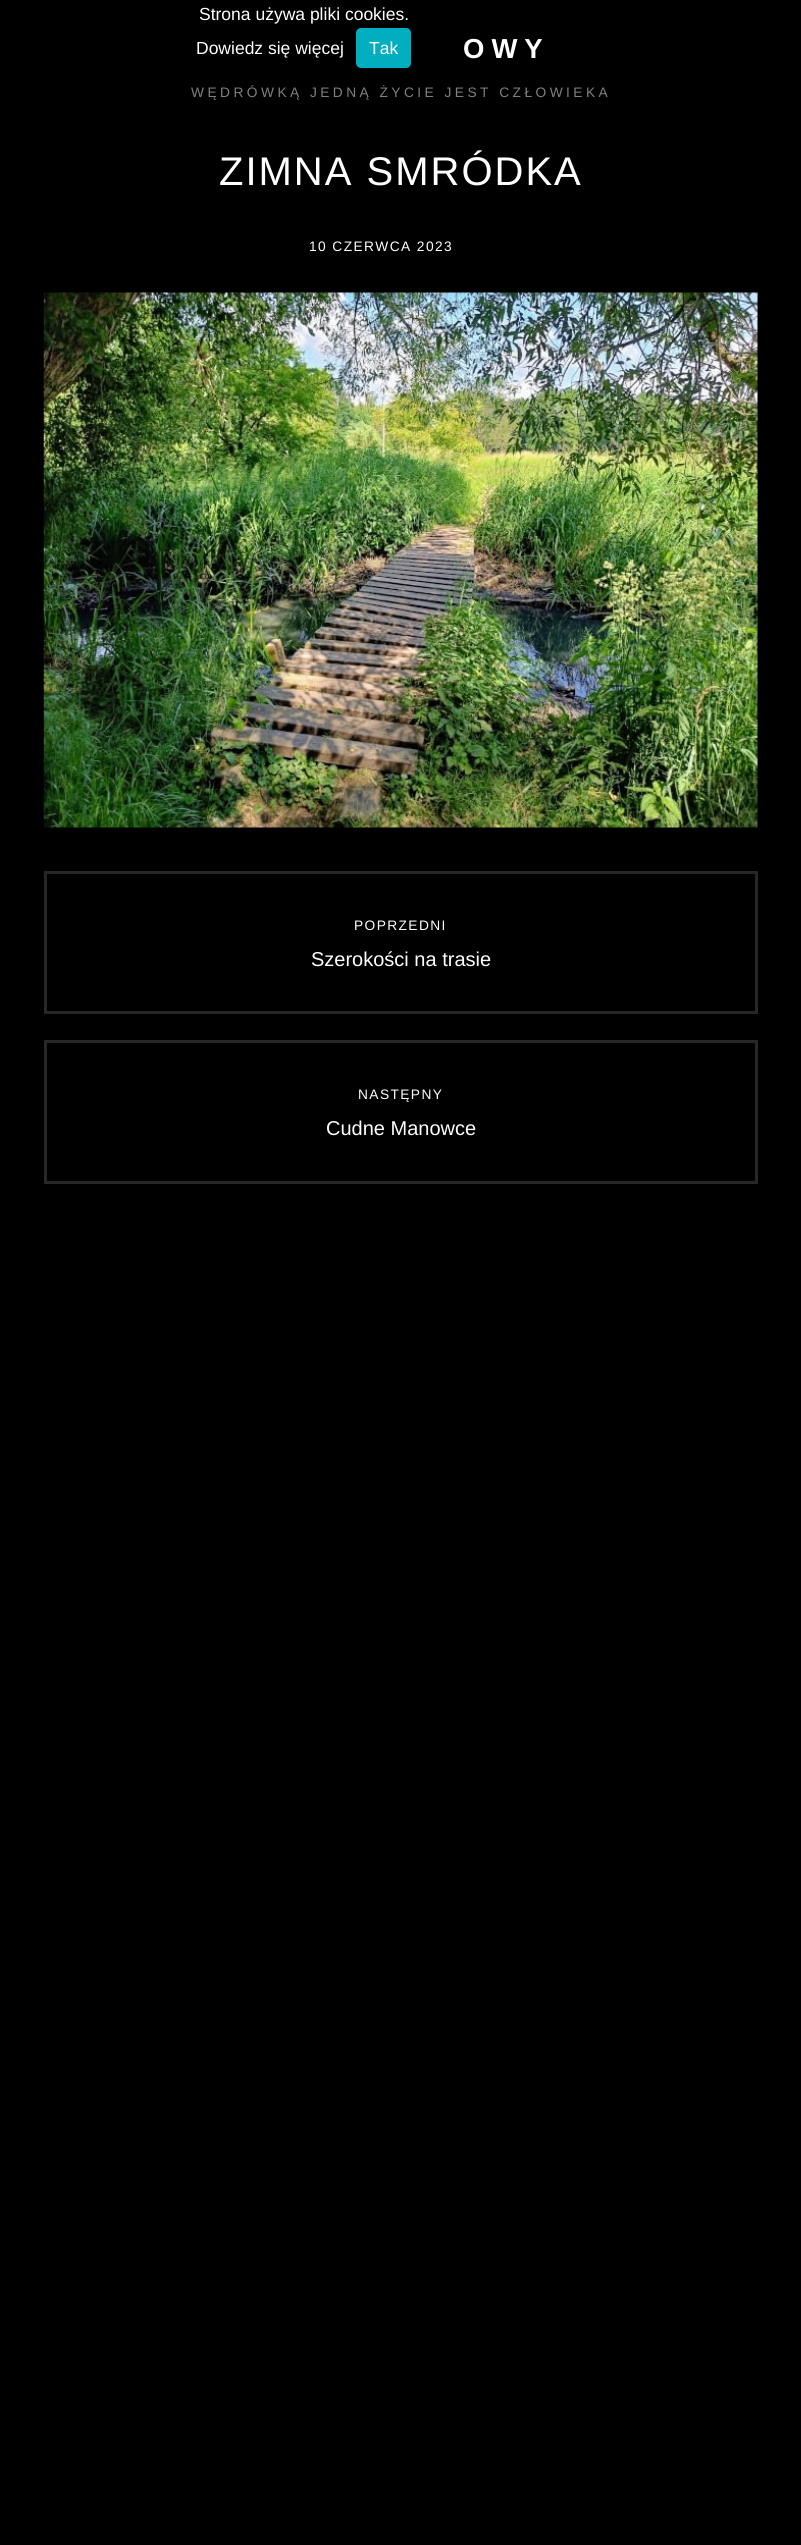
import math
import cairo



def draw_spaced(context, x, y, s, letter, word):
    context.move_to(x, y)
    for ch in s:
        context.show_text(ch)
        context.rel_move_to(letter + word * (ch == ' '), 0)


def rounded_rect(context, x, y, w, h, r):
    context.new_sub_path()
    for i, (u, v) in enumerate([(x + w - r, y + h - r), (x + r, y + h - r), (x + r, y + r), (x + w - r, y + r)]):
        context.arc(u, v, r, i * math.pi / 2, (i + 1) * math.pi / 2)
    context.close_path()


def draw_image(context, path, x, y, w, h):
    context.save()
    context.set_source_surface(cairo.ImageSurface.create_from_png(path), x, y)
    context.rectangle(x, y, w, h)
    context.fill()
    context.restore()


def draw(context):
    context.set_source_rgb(0, 0, 0)
    context.paint()
    context.set_source_rgb(0, 175 / 255, 191 / 255)
    rounded_rect(context, 356, 28, 55, 40, 5)
    context.fill()
    draw_image(context, "images/1.png", 43, 292, 715, 536)
    context.rectangle(45.5, 872.5, 711, 140)
    context.set_source_rgb(41 / 255, 38 / 255, 38 / 255)
    context.set_line_width(3)
    context.stroke()
    context.rectangle(45.5, 1041.5, 711, 141)
    context.stroke()
    context.select_font_face("Liberation Sans")
    context.set_font_size(17.5)
    context.set_source_rgb(1, 1, 1)
    context.move_to(199, 20)
    context.show_text("Strona używa pliki cookies.")
    context.move_to(196, 54)
    context.show_text("Dowiedz się więcej")
    context.move_to(369, 54)
    context.show_text("Tak")
    context.select_font_face("Liberation Sans", cairo.FontSlant.NORMAL, cairo.FontWeight.BOLD)
    context.set_font_size(27.5)
    draw_spaced(context, 463, 58, "OWY", 7, 0)
    context.select_font_face("Liberation Sans")
    context.set_font_size(13.75)
    context.set_source_rgb(128 / 255, 128 / 255, 128 / 255)
    draw_spaced(context, 191, 97, "WĘDRÓWKĄ JEDNĄ ŻYCIE JEST CZŁOWIEKA", 3.45, 0)
    context.set_font_size(40)
    context.set_source_rgb(1, 1, 1)
    draw_spaced(context, 219, 185, "ZIMNA SMRÓDKA", 2, 0)
    context.set_font_size(13.75)
    draw_spaced(context, 309, 251, "10 CZERWCA 2023", 1.4, 0)
    draw_spaced(context, 354, 930, "POPRZEDNI", 1.4, 0)
    context.set_font_size(20)
    context.move_to(311, 966)
    context.show_text("Szerokości na trasie")
    context.set_font_size(13.75)
    draw_spaced(context, 358, 1099, "NASTĘPNY", 1.4, 0)
    context.set_font_size(20)
    context.move_to(326, 1135)
    context.show_text("Cudne Manowce")


surface = cairo.ImageSurface(cairo.Format.RGB24, 801, 2545)
context = cairo.Context(surface)
options = cairo.FontOptions()
options.set_hint_metrics(cairo.HintMetrics.OFF)
options.set_hint_style(cairo.HintStyle.NONE)
context.set_font_options(options)
context.set_miter_limit(4)
draw(context)
surface.write_to_png("out.png")
